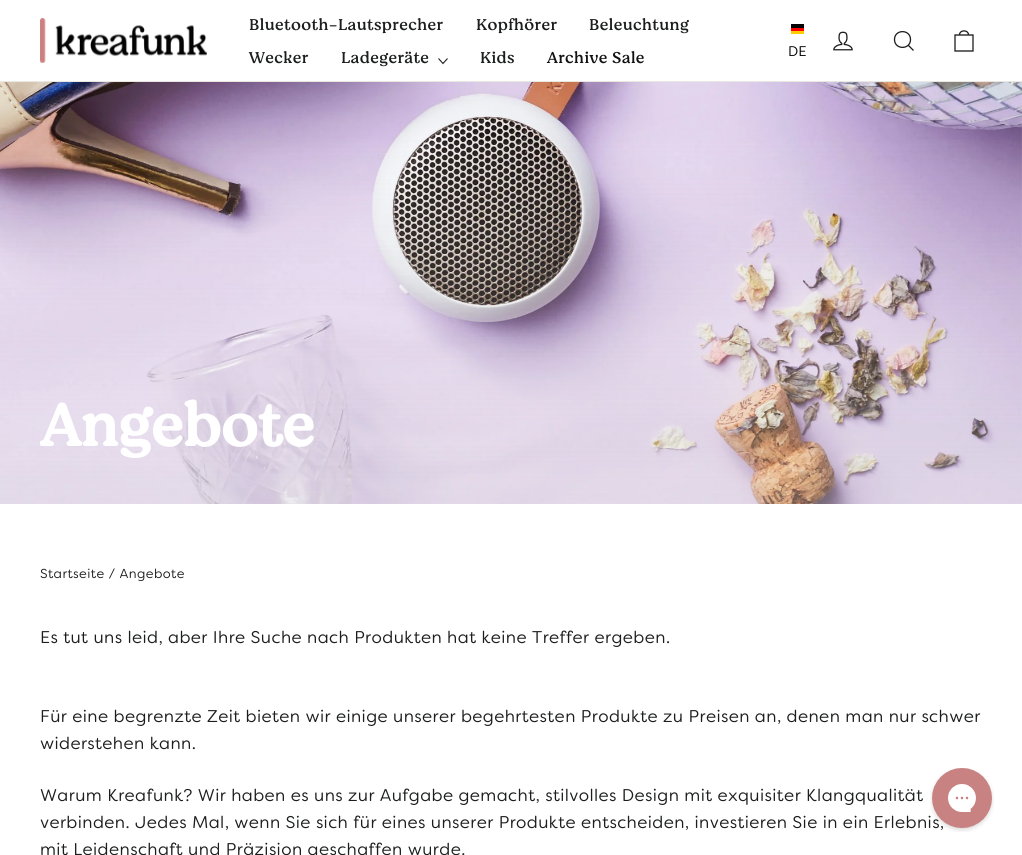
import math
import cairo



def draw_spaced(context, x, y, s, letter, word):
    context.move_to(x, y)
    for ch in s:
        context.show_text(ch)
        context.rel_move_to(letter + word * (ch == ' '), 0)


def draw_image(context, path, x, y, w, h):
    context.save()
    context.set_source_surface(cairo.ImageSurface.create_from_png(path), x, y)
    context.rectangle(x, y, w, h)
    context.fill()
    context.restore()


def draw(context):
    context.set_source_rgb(1, 1, 1)
    context.paint()
    context.set_source_rgb(232 / 255, 232 / 255, 225 / 255)
    context.rectangle(0, 81, 1022, 1)
    context.fill()
    draw_image(context, "images/1.png", 40, 18, 167, 45)
    context.new_path()
    context.move_to(438.5, 58.5)
    context.line_to(443, 63.5)
    context.line_to(447.5, 58.5)
    context.set_source_rgb(28 / 255, 29 / 255, 29 / 255)
    context.set_line_width(1.1)
    context.stroke()
    context.set_source_rgb(0, 0, 1 / 255)
    context.rectangle(791, 24, 13, 4)
    context.fill()
    context.set_source_rgb(1, 0, 0)
    context.rectangle(791, 28, 13, 3)
    context.fill()
    context.set_source_rgb(1, 204 / 255, 0)
    context.rectangle(791, 31, 13, 3)
    context.fill()
    draw_image(context, "images/2.png", 833, 31, 20, 20)
    context.new_path()
    context.move_to(910.5, 39.5)
    context.curve_to(910.5, 50, 894.5, 50, 894.5, 39.5)
    context.curve_to(894.5, 29, 910.5, 29, 910.5, 39.5)
    context.close_path()
    context.move_to(913.5, 50.5)
    context.line_to(908.5, 45.5)
    context.set_source_rgb(28 / 255, 29 / 255, 29 / 255)
    context.set_line_width(1.3)
    context.stroke()
    context.new_path()
    context.move_to(955, 35)
    context.line_to(973, 35)
    context.line_to(973, 51)
    context.line_to(955, 51)
    context.close_path()
    context.move_to(959.5, 35)
    context.curve_to(959.5, 29.5, 968.5, 29.5, 968.5, 35)
    context.stroke()
    draw_image(context, "images/3.png", 0, 82, 1022, 422)
    gradient = cairo.LinearGradient(511, -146, 511, 504)
    gradient.add_color_stop_rgba(0, 23 / 255, 23 / 255, 44 / 255, 0)
    gradient.add_color_stop_rgba(0.4, 232 / 255, 232 / 255, 225 / 255, 0)
    gradient.add_color_stop_rgba(1, 232 / 255, 232 / 255, 225 / 255, 0.32)
    context.set_source(gradient)
    context.rectangle(0, 140, 1022, 364)
    context.fill()
    context.select_font_face("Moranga")
    context.set_font_size(16)
    context.set_source_rgb(28 / 255, 29 / 255, 29 / 255)
    draw_spaced(context, 249, 30, "Bluetooth-Lautsprecher", 0.42, 0)
    draw_spaced(context, 476, 30, "Kopfhörer", 0.42, 0)
    draw_spaced(context, 589, 30, "Beleuchtung", 0.42, 0)
    draw_spaced(context, 249, 63, "Wecker", 0.42, 0)
    draw_spaced(context, 341, 63, "Ladegeräte", 0.42, 0)
    draw_spaced(context, 480, 63, "Kids", 0.42, 0)
    context.set_source_rgb(17 / 255, 17 / 255, 17 / 255)
    draw_spaced(context, 547, 63, "Archive Sale", 0.42, 0)
    context.select_font_face("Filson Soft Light")
    context.set_font_size(14)
    context.set_source_rgb(0, 0, 0)
    context.move_to(788, 56)
    context.show_text("DE")
    context.save()
    context.rectangle(40, 386, 274, 78)
    context.clip()
    context.select_font_face("Moranga", cairo.FontSlant.NORMAL, cairo.FontWeight.BOLD)
    context.set_font_size(60)
    context.set_source_rgb(1, 1, 1)
    context.move_to(40, 446)
    context.show_text("Angebote")
    context.restore()
    context.set_font_size(13)
    context.set_source_rgb(28 / 255, 29 / 255, 29 / 255)
    draw_spaced(context, 40, 578, "Startseite / Angebote", 0.42, 0)
    context.set_font_size(17)
    draw_spaced(context, 40, 643, "Es tut uns leid, aber Ihre Suche nach Produkten hat keine Treffer ergeben.", 0.42, 0)
    draw_spaced(context, 40, 722, "Für eine begrenzte Zeit bieten wir einige unserer begehrtesten Produkte zu Preisen an, denen man nur schwer", 0.42, 0)
    draw_spaced(context, 40, 749, "widerstehen kann.", 0.42, 0)
    draw_spaced(context, 40, 801, "Warum Kreafunk? Wir haben es uns zur Aufgabe gemacht, stilvolles Design mit exquisiter Klangqualität", 0.42, 0)
    draw_spaced(context, 40, 828, "verbinden. Jedes Mal, wenn Sie sich für eines unserer Produkte entscheiden, investieren Sie in ein Erlebnis,", 0.42, 0)
    draw_spaced(context, 40, 855, "mit Leidenschaft und Präzision geschaffen wurde.", 0.42, 0)
    draw_image(context, "images/4.png", 930, 768, 64, 64)


surface = cairo.ImageSurface(cairo.Format.RGB24, 1022, 855)
context = cairo.Context(surface)
options = cairo.FontOptions()
options.set_hint_metrics(cairo.HintMetrics.OFF)
options.set_hint_style(cairo.HintStyle.NONE)
context.set_font_options(options)
context.set_miter_limit(4)
draw(context)
surface.write_to_png("out.png")
